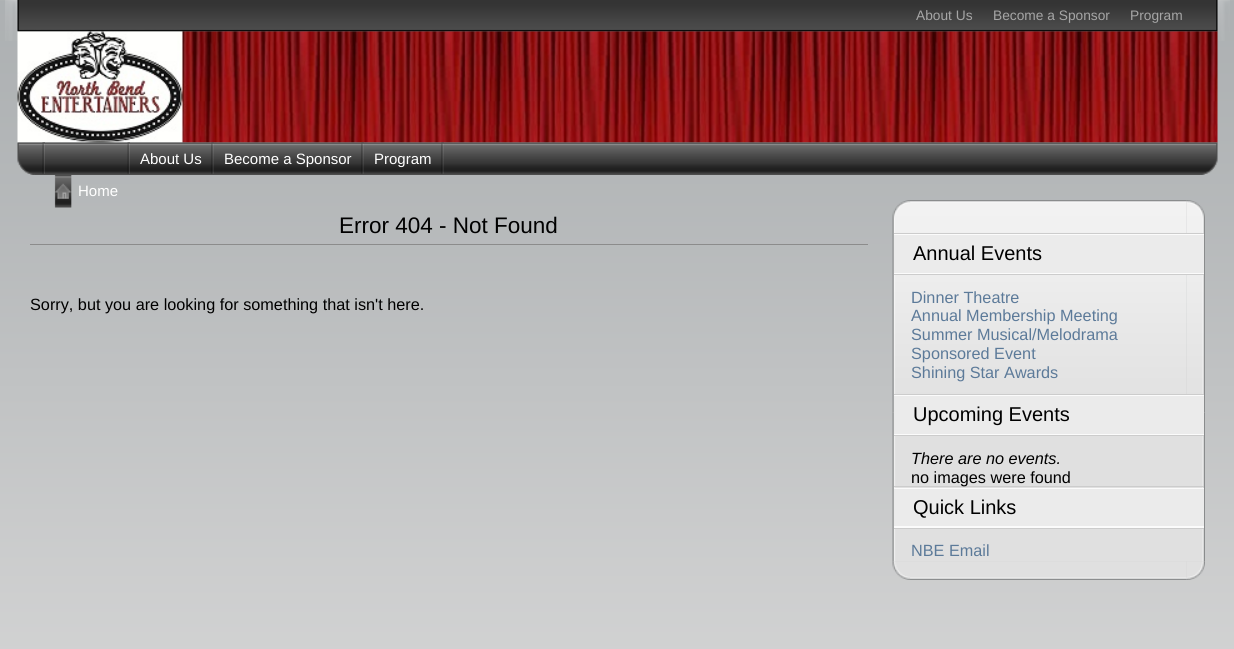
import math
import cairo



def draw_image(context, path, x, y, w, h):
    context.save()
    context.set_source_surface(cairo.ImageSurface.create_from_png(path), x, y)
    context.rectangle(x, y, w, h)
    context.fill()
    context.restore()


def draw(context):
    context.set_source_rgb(1, 1, 1)
    context.paint()
    draw_image(context, "images/1.png", 0, 0, 1234, 649)
    draw_image(context, "images/2.png", 5, 0, 1225, 41)
    draw_image(context, "images/4.png", 17, 31, 1201, 112)
    draw_image(context, "images/3.png", 17, 0, 1201, 32)
    draw_image(context, "images/5.png", 17, 142, 1201, 33)
    draw_image(context, "images/6.png", 42, 142, 3, 32)
    draw_image(context, "images/7.png", 211, 142, 3, 32)
    draw_image(context, "images/8.png", 361, 142, 3, 32)
    draw_image(context, "images/9.png", 441, 142, 3, 32)
    draw_image(context, "images/10.png", 127, 142, 3, 32)
    draw_image(context, "images/11.png", 54, 175, 18, 33)
    context.set_source_rgb(140 / 255, 140 / 255, 140 / 255)
    context.rectangle(30, 244, 838, 1)
    context.fill()
    draw_image(context, "images/12.png", 892, 200, 295, 213)
    draw_image(context, "images/14.png", 892, 412, 295, 150)
    draw_image(context, "images/15.png", 1186, 412, 19, 150)
    draw_image(context, "images/13.png", 1186, 200, 19, 213)
    context.set_source_rgb(251 / 255, 251 / 255, 251 / 255)
    context.rectangle(894, 234, 310, 40)
    context.fill()
    context.set_source_rgb(204 / 255, 204 / 255, 204 / 255)
    context.rectangle(894, 233, 310, 1)
    context.fill()
    context.rectangle(894, 274, 310, 1)
    context.fill()
    context.set_source_rgb(235 / 255, 235 / 255, 235 / 255)
    context.rectangle(894, 235, 310, 38)
    context.fill()
    context.set_source_rgb(251 / 255, 251 / 255, 251 / 255)
    context.rectangle(894, 395, 310, 40)
    context.fill()
    context.set_source_rgb(204 / 255, 204 / 255, 204 / 255)
    context.rectangle(894, 394, 310, 1)
    context.fill()
    context.rectangle(894, 435, 310, 1)
    context.fill()
    context.set_source_rgb(235 / 255, 235 / 255, 235 / 255)
    context.rectangle(894, 396, 310, 38)
    context.fill()
    context.set_source_rgb(251 / 255, 251 / 255, 251 / 255)
    context.rectangle(894, 488, 310, 40)
    context.fill()
    context.set_source_rgb(204 / 255, 204 / 255, 204 / 255)
    context.rectangle(894, 486, 310, 1)
    context.fill()
    context.rectangle(894, 528, 310, 1)
    context.fill()
    context.set_source_rgb(235 / 255, 235 / 255, 235 / 255)
    context.rectangle(894, 489, 310, 37)
    context.fill()
    draw_image(context, "images/16.png", 892, 561, 295, 19)
    draw_image(context, "images/17.png", 1186, 561, 19, 19)
    context.select_font_face("Liberation Sans")
    context.set_font_size(13.75)
    context.set_source_rgb(166 / 255, 166 / 255, 166 / 255)
    context.move_to(916, 20)
    context.show_text("About Us")
    context.move_to(993, 20)
    context.show_text("Become a Sponsor")
    context.move_to(1130, 20)
    context.show_text("Program")
    context.set_font_size(15)
    context.set_source_rgb(1, 1, 1)
    context.move_to(140, 164)
    context.show_text("About Us")
    context.move_to(224, 164)
    context.show_text("Become a Sponsor")
    context.move_to(374, 164)
    context.show_text("Program")
    context.move_to(78, 196)
    context.show_text("Home")
    context.set_font_size(22.5)
    context.set_source_rgb(0, 0, 0)
    context.move_to(339, 233)
    context.show_text("Error 404 - Not Found")
    context.set_font_size(16.25)
    context.move_to(30, 310)
    context.show_text("Sorry, but you are looking for something that isn't here.")
    context.set_font_size(20)
    context.move_to(913, 260)
    context.show_text("Annual Events")
    context.set_font_size(16.25)
    context.set_source_rgb(92 / 255, 122 / 255, 153 / 255)
    context.move_to(911, 303)
    context.show_text("Dinner Theatre")
    context.move_to(911, 321)
    context.show_text("Annual Membership Meeting")
    context.move_to(911, 340)
    context.show_text("Summer Musical/Melodrama")
    context.move_to(911, 359)
    context.show_text("Sponsored Event")
    context.move_to(911, 378)
    context.show_text("Shining Star Awards")
    context.set_font_size(20)
    context.set_source_rgb(0, 0, 0)
    context.move_to(913, 421)
    context.show_text("Upcoming Events")
    context.select_font_face("Liberation Sans", cairo.FontSlant.ITALIC)
    context.set_font_size(16.25)
    context.move_to(911, 464)
    context.show_text("There are no events.")
    context.select_font_face("Liberation Sans")
    context.move_to(911, 483)
    context.show_text("no images were found")
    context.set_font_size(20)
    context.move_to(913, 514)
    context.show_text("Quick Links")
    context.set_font_size(16.25)
    context.set_source_rgb(92 / 255, 122 / 255, 153 / 255)
    context.move_to(911, 556)
    context.show_text("NBE Email")


surface = cairo.ImageSurface(cairo.Format.RGB24, 1234, 649)
context = cairo.Context(surface)
options = cairo.FontOptions()
options.set_hint_metrics(cairo.HintMetrics.OFF)
options.set_hint_style(cairo.HintStyle.NONE)
context.set_font_options(options)
context.set_miter_limit(4)
draw(context)
surface.write_to_png("out.png")
